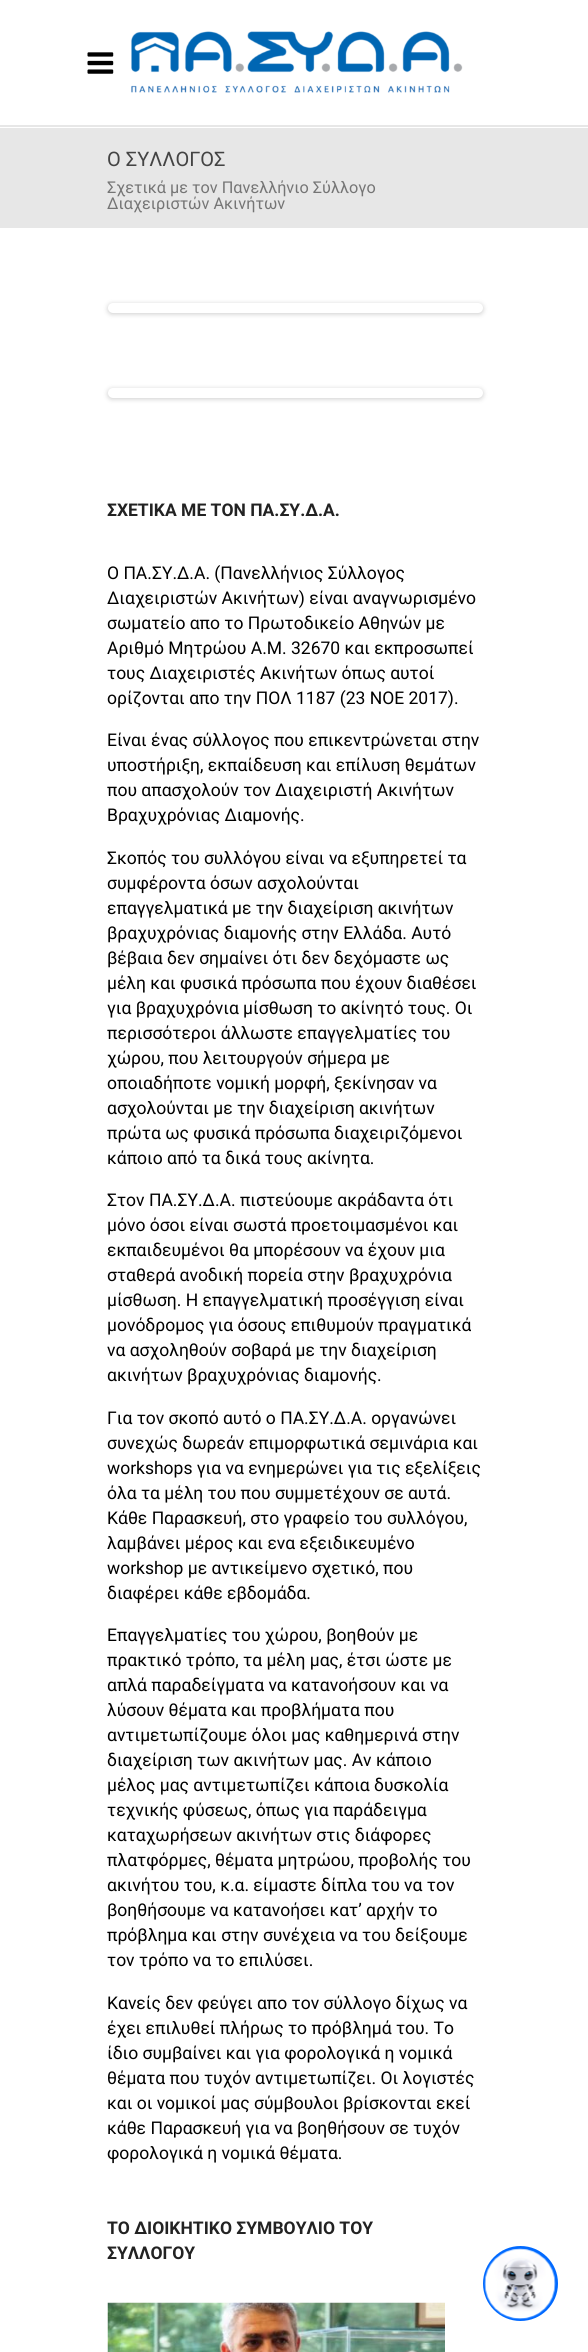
import math
import cairo



def rounded_rect(context, x, y, w, h, r):
    context.new_sub_path()
    for i, (u, v) in enumerate([(x + w - r, y + h - r), (x + r, y + h - r), (x + r, y + r), (x + w - r, y + r)]):
        context.arc(u, v, r, i * math.pi / 2, (i + 1) * math.pi / 2)
    context.close_path()


def draw_shadow(context, x, y, w, h, r, blur, alpha):
    context.push_group_with_content(cairo.Content.ALPHA)
    context.set_operator(cairo.Operator.SOURCE)
    for i in range(15, -16, -2):
        e = blur * i / 6
        if min(w, h) + 2 * e > 0:
            context.set_source_rgba(0, 0, 0, alpha * math.erfc((i - 1) / 8.5) / 2)
            rounded_rect(context, x - e, y - e, w + 2 * e, h + 2 * e, max(0, min(r + e + blur * .6, min(w, h) / 2 + e)))
            context.fill()
    context.mask(context.pop_group())


def draw_image(context, path, x, y, w, h):
    context.save()
    context.set_source_surface(cairo.ImageSurface.create_from_png(path), x, y)
    context.rectangle(x, y, w, h)
    context.fill()
    context.restore()


def draw(context):
    context.set_source_rgb(1, 1, 1)
    context.paint()
    draw_image(context, "images/1.png", 87, 52, 27, 22)
    draw_image(context, "images/2.png", 131, 31, 332, 62)
    context.set_source_rgb(231 / 255, 231 / 255, 231 / 255)
    context.rectangle(0, 125, 588, 2)
    context.fill()
    context.rectangle(0, 128, 588, 100)
    context.fill()
    context.set_source_rgb(0, 0, 0)
    draw_shadow(context, 108, 304, 375, 10, 5, 2.5, 0.2)
    context.set_source_rgb(1, 1, 1)
    rounded_rect(context, 108, 303, 375, 10, 5)
    context.fill()
    context.set_source_rgb(0, 0, 0)
    draw_shadow(context, 108, 389, 375, 10, 5, 2.5, 0.2)
    context.set_source_rgb(1, 1, 1)
    rounded_rect(context, 108, 388, 375, 10, 5)
    context.fill()
    draw_image(context, "images/3.png", 107, 2302, 338, 50)
    context.set_source_rgb(0, 105 / 255, 1)
    context.arc(520.5, 2283.5, 37.5, 0, 2 * math.pi)
    context.fill()
    draw_image(context, "images/4.png", 484, 2248, 72, 72)
    context.select_font_face("Roboto")
    context.set_font_size(20)
    context.set_source_rgb(68 / 255, 68 / 255, 68 / 255)
    context.move_to(107, 166)
    context.show_text("Ο ΣΥΛΛΟΓΟΣ")
    context.set_font_size(16.25)
    context.set_source_rgb(117 / 255, 117 / 255, 117 / 255)
    context.move_to(107, 193)
    context.show_text("Σχετικά με τον Πανελλήνιο Σύλλογο")
    context.move_to(107, 209)
    context.show_text("Διαχειριστών Ακινήτων")
    context.select_font_face("Roboto", cairo.FontSlant.NORMAL, cairo.FontWeight.BOLD)
    context.set_font_size(17.5)
    context.set_source_rgb(34 / 255, 34 / 255, 34 / 255)
    context.move_to(107, 516)
    context.show_text("ΣΧΕΤΙΚΑ ΜΕ ΤΟΝ ΠΑ.ΣΥ.Δ.Α.")
    context.select_font_face("Roboto")
    context.set_source_rgb(0, 0, 0)
    context.move_to(107, 579)
    context.show_text("Ο ΠΑ.ΣΥ.Δ.Α. (Πανελλήνιος Σύλλογος")
    context.move_to(107, 604)
    context.show_text("Διαχειριστών Ακινήτων) είναι αναγνωρισμένο")
    context.move_to(107, 629)
    context.show_text("σωματείο απο το Πρωτοδικείο Αθηνών με")
    context.move_to(107, 654)
    context.show_text("Αριθμό Μητρώου Α.Μ. 32670 και εκπροσωπεί")
    context.move_to(107, 679)
    context.show_text("τους Διαχειριστές Ακινήτων όπως αυτοί")
    context.move_to(107, 704)
    context.show_text("ορίζονται απο την ΠΟΛ 1187 (23 ΝΟΕ 2017).")
    context.move_to(107, 746)
    context.show_text("Είναι ένας σύλλογος που επικεντρώνεται στην")
    context.move_to(107, 771)
    context.show_text("υποστήριξη, εκπαίδευση και επίλυση θεμάτων")
    context.move_to(107, 796)
    context.show_text("που απασχολούν τον Διαχειριστή Ακινήτων")
    context.move_to(107, 821)
    context.show_text("Βραχυχρόνιας Διαμονής.")
    context.move_to(107, 864)
    context.show_text("Σκοπός του συλλόγου είναι να εξυπηρετεί τα")
    context.move_to(107, 889)
    context.show_text("συμφέροντα όσων ασχολούνται")
    context.move_to(107, 914)
    context.show_text("επαγγελματικά με την διαχείριση ακινήτων")
    context.move_to(107, 939)
    context.show_text("βραχυχρόνιας διαμονής στην Ελλάδα. Αυτό")
    context.move_to(107, 964)
    context.show_text("βέβαια δεν σημαίνει ότι δεν δεχόμαστε ως")
    context.move_to(107, 989)
    context.show_text("μέλη και φυσικά πρόσωπα που έχουν διαθέσει")
    context.move_to(107, 1014)
    context.show_text("για βραχυχρόνια μίσθωση το ακίνητό τους. Οι")
    context.move_to(107, 1039)
    context.show_text("περισσότεροι άλλωστε επαγγελματίες του")
    context.move_to(107, 1064)
    context.show_text("χώρου, που λειτουργούν σήμερα με")
    context.move_to(107, 1089)
    context.show_text("οποιαδήποτε νομική μορφή, ξεκίνησαν να")
    context.move_to(107, 1114)
    context.show_text("ασχολούνται με την διαχείριση ακινήτων")
    context.move_to(107, 1139)
    context.show_text("πρώτα ως φυσικά πρόσωπα διαχειριζόμενοι")
    context.move_to(107, 1164)
    context.show_text("κάποιο από τα δικά τους ακίνητα.")
    context.move_to(107, 1206)
    context.show_text("Στον ΠΑ.ΣΥ.Δ.Α. πιστεύουμε ακράδαντα ότι")
    context.move_to(107, 1231)
    context.show_text("μόνο όσοι είναι σωστά προετοιμασμένοι και")
    context.move_to(107, 1256)
    context.show_text("εκπαιδευμένοι θα μπορέσουν να έχουν μια")
    context.move_to(107, 1281)
    context.show_text("σταθερά ανοδική πορεία στην βραχυχρόνια")
    context.move_to(107, 1306)
    context.show_text("μίσθωση. Η επαγγελματική προσέγγιση είναι")
    context.move_to(107, 1331)
    context.show_text("μονόδρομος για όσους επιθυμούν πραγματικά")
    context.move_to(107, 1356)
    context.show_text("να ασχοληθούν σοβαρά με την διαχείριση")
    context.move_to(107, 1381)
    context.show_text("ακινήτων βραχυχρόνιας διαμονής.")
    context.move_to(107, 1424)
    context.show_text("Για τον σκοπό αυτό ο ΠΑ.ΣΥ.Δ.Α. οργανώνει")
    context.move_to(107, 1449)
    context.show_text("συνεχώς δωρεάν επιμορφωτικά σεμινάρια και")
    context.move_to(107, 1474)
    context.show_text("workshops για να ενημερώνει για τις εξελίξεις")
    context.move_to(107, 1499)
    context.show_text("όλα τα μέλη του που συμμετέχουν σε αυτά.")
    context.move_to(107, 1524)
    context.show_text("Κάθε Παρασκευή, στο γραφείο του συλλόγου,")
    context.move_to(107, 1549)
    context.show_text("λαμβάνει μέρος και ενα εξειδικευμένο")
    context.move_to(107, 1574)
    context.show_text("workshop με αντικείμενο σχετικό, που")
    context.move_to(107, 1599)
    context.show_text("διαφέρει κάθε εβδομάδα.")
    context.move_to(107, 1641)
    context.show_text("Επαγγελματίες του χώρου, βοηθούν με")
    context.move_to(107, 1666)
    context.show_text("πρακτικό τρόπο, τα μέλη μας, έτσι ώστε με")
    context.move_to(107, 1691)
    context.show_text("απλά παραδείγματα να κατανοήσουν και να")
    context.move_to(107, 1716)
    context.show_text("λύσουν θέματα και προβλήματα που")
    context.move_to(107, 1741)
    context.show_text("αντιμετωπίζουμε όλοι μας καθημερινά στην")
    context.move_to(107, 1766)
    context.show_text("διαχείριση των ακινήτων μας. Αν κάποιο")
    context.move_to(107, 1791)
    context.show_text("μέλος μας αντιμετωπίζει κάποια δυσκολία")
    context.move_to(107, 1816)
    context.show_text("τεχνικής φύσεως, όπως για παράδειγμα")
    context.move_to(107, 1841)
    context.show_text("καταχωρήσεων ακινήτων στις διάφορες")
    context.move_to(107, 1866)
    context.show_text("πλατφόρμες, θέματα μητρώου, προβολής του")
    context.move_to(107, 1891)
    context.show_text("ακινήτου του, κ.α. είμαστε δίπλα του να τον")
    context.move_to(107, 1916)
    context.show_text("βοηθήσουμε να κατανοήσει κατ’ αρχήν το")
    context.move_to(107, 1941)
    context.show_text("πρόβλημα και στην συνέχεια να του δείξουμε")
    context.move_to(107, 1966)
    context.show_text("τον τρόπο να το επιλύσει.")
    context.move_to(107, 2009)
    context.show_text("Κανείς δεν φεύγει απο τον σύλλογο δίχως να")
    context.move_to(107, 2034)
    context.show_text("έχει επιλυθεί πλήρως το πρόβλημά του. Το")
    context.move_to(107, 2059)
    context.show_text("ίδιο συμβαίνει και για φορολογικά η νομικά")
    context.move_to(107, 2084)
    context.show_text("θέματα που τυχόν αντιμετωπίζει. Οι λογιστές")
    context.move_to(107, 2109)
    context.show_text("και οι νομικοί μας σύμβουλοι βρίσκονται εκεί")
    context.move_to(107, 2134)
    context.show_text("κάθε Παρασκευή για να βοηθήσουν σε τυχόν")
    context.move_to(107, 2159)
    context.show_text("φορολογικά η νομικά θέματα.")
    context.select_font_face("Roboto", cairo.FontSlant.NORMAL, cairo.FontWeight.BOLD)
    context.set_source_rgb(34 / 255, 34 / 255, 34 / 255)
    context.move_to(107, 2234)
    context.show_text("ΤΟ ΔΙΟΙΚΗΤΙΚΟ ΣΥΜΒΟΥΛΙΟ ΤΟΥ")
    context.move_to(107, 2259)
    context.show_text("ΣΥΛΛΟΓΟΥ")


surface = cairo.ImageSurface(cairo.Format.RGB24, 588, 2352)
context = cairo.Context(surface)
options = cairo.FontOptions()
options.set_hint_metrics(cairo.HintMetrics.OFF)
options.set_hint_style(cairo.HintStyle.NONE)
context.set_font_options(options)
context.set_miter_limit(4)
draw(context)
surface.write_to_png("out.png")
